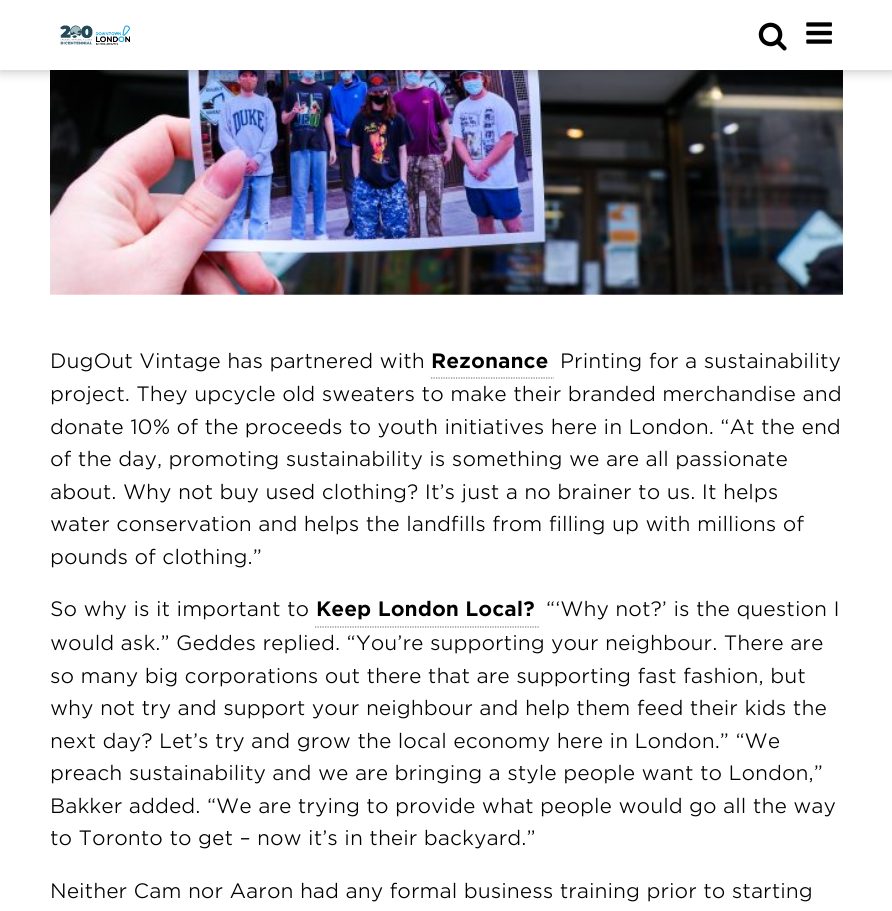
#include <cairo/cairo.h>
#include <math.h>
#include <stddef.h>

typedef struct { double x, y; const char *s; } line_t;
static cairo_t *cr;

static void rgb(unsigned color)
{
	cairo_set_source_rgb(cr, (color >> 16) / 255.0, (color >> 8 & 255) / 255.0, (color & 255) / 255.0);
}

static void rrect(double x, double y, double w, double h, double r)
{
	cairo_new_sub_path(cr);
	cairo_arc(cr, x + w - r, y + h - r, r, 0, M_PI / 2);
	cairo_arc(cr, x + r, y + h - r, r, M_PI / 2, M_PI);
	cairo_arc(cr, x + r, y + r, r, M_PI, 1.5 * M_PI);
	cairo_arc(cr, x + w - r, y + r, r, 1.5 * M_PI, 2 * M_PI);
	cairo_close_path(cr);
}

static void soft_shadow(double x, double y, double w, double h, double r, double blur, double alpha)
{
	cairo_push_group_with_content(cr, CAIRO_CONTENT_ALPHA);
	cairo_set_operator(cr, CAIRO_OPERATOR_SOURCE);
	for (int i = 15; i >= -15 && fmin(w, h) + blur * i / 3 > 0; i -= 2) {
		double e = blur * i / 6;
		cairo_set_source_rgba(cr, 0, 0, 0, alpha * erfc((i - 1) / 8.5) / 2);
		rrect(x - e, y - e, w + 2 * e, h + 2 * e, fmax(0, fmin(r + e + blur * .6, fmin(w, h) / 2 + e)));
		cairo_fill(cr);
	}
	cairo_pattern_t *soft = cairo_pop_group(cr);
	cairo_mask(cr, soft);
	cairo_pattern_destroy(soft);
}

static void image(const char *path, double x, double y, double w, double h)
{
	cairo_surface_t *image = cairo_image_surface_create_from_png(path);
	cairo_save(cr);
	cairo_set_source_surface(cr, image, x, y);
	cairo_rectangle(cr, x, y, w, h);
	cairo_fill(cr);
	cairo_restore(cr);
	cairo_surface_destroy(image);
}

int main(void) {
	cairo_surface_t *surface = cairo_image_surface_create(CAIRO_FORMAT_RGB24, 892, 911);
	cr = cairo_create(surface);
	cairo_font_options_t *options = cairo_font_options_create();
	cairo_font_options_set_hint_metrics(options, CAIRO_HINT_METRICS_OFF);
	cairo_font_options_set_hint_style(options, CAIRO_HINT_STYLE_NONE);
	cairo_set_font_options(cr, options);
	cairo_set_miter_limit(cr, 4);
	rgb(0xffffff);
	cairo_paint(cr);
	image("img/4.png", 50, 70, 793, 225);
	rgb(0x000000);
	soft_shadow(0, 1, 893, 70, 0, 6, 0.25);
	rgb(0xffffff);
	cairo_rectangle(cr, 0, 0, 892, 70);
	cairo_fill(cr);
	image("img/1.png", 60, 25, 70, 20);
	image("img/2.png", 758, 22, 29, 29);
	image("img/3.png", 806, 22, 26, 22);
	cairo_new_path(cr);
	cairo_move_to(cr, 431, 378);
	cairo_line_to(cr, 554, 378);
	rgb(0x808080);
	cairo_set_line_width(cr, 1.2);
	cairo_set_dash(cr, (double[]){1.25, 1.25}, 2, 0);
	cairo_stroke(cr);
	cairo_new_path(cr);
	cairo_move_to(cr, 315, 627);
	cairo_line_to(cr, 539, 627);
	cairo_stroke(cr);
	cairo_select_font_face(cr, "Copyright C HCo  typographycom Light", CAIRO_FONT_SLANT_NORMAL, CAIRO_FONT_WEIGHT_NORMAL);
	cairo_set_font_size(cr, 20);
	rgb(0x000000);
	cairo_move_to(cr, 50, 368);
	cairo_show_text(cr, "DugOut Vintage has partnered with");
	cairo_select_font_face(cr, "Copyright C HCo  typographycom", CAIRO_FONT_SLANT_NORMAL, CAIRO_FONT_WEIGHT_NORMAL);
	cairo_move_to(cr, 431, 368);
	cairo_show_text(cr, "Rezonance");
	cairo_select_font_face(cr, "Copyright C HCo  typographycom Light", CAIRO_FONT_SLANT_NORMAL, CAIRO_FONT_WEIGHT_NORMAL);
	{
		static const line_t items[] = {
			{560, 368, "Printing for a sustainability"},
			{50, 401, "project. They upcycle old sweaters to make their branded merchandise and"},
			{50, 434, "donate 10% of the proceeds to youth initiatives here in London. “At the end"},
			{50, 466, "of the day, promoting sustainability is something we are all passionate"},
			{50, 499, "about. Why not buy used clothing? It’s just a no brainer to us. It helps"},
			{50, 531, "water conservation and helps the landfills from filling up with millions of"},
			{50, 564, "pounds of clothing.”"},
			{50, 616, "So why is it important to"},
		};
		for (size_t i = 0; i < sizeof items / sizeof *items; i++) {
			cairo_move_to(cr, items[i].x, items[i].y);
			cairo_show_text(cr, items[i].s);
		}
	}
	cairo_select_font_face(cr, "Copyright C HCo  typographycom", CAIRO_FONT_SLANT_NORMAL, CAIRO_FONT_WEIGHT_NORMAL);
	cairo_move_to(cr, 316, 616);
	cairo_show_text(cr, "Keep London Local?");
	cairo_select_font_face(cr, "Copyright C HCo  typographycom Light", CAIRO_FONT_SLANT_NORMAL, CAIRO_FONT_WEIGHT_NORMAL);
	{
		static const line_t items[] = {
			{546, 616, "“‘Why not?’ is the question I"},
			{50, 650, "would ask.” Geddes replied. “You’re supporting your neighbour. There are"},
			{50, 683, "so many big corporations out there that are supporting fast fashion, but"},
			{50, 715, "why not try and support your neighbour and help them feed their kids the"},
			{50, 748, "next day? Let’s try and grow the local economy here in London.” “We"},
			{50, 780, "preach sustainability and we are bringing a style people want to London,”"},
			{50, 813, "Bakker added. “We are trying to provide what people would go all the way"},
			{50, 845, "to Toronto to get – now it’s in their backyard.”"},
			{50, 898, "Neither Cam nor Aaron had any formal business training prior to starting"},
		};
		for (size_t i = 0; i < sizeof items / sizeof *items; i++) {
			cairo_move_to(cr, items[i].x, items[i].y);
			cairo_show_text(cr, items[i].s);
		}
	}
	cairo_surface_write_to_png(surface, "page.png");
	cairo_font_options_destroy(options);
	cairo_destroy(cr);
	cairo_surface_destroy(surface);
	return 0;
}
